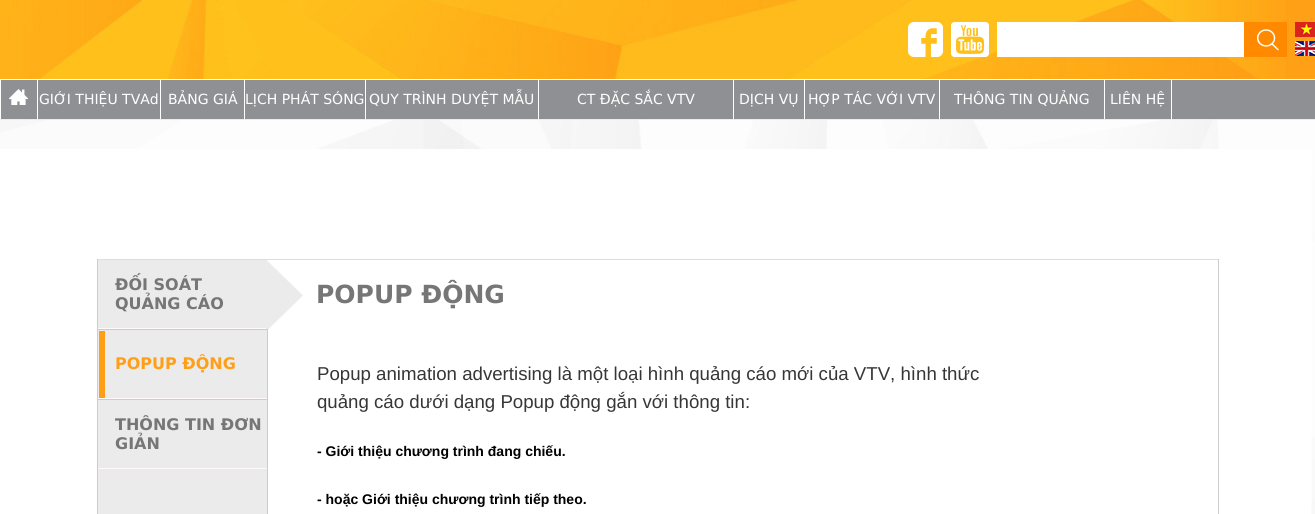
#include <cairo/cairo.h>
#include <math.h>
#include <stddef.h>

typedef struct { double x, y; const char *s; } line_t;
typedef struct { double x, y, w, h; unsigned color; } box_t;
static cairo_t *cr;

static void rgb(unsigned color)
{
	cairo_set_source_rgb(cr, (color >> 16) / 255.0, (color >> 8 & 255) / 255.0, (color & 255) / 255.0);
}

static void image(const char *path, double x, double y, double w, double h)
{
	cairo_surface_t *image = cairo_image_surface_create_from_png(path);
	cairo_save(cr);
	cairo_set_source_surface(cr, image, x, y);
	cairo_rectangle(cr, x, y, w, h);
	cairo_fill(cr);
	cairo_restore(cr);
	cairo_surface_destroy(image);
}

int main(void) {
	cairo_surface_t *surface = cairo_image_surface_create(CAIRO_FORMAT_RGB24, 1315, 514);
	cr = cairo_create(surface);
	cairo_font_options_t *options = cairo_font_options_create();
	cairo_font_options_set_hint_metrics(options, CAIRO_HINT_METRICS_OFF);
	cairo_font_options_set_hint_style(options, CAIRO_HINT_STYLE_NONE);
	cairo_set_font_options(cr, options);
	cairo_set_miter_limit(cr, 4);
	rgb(0xffffff);
	cairo_paint(cr);
	image("img/1.png", 0, 119, 1315, 395);
	image("img/2.png", 0, 0, 1315, 119);
	image("img/3.png", 908, 22, 35, 35);
	image("img/4.png", 951, 22, 38, 35);
	rgb(0xffffff);
	cairo_rectangle(cr, 997, 22, 247, 35);
	cairo_fill(cr);
	image("img/5.png", 1244, 22, 11, 35);
	image("img/6.png", 1255, 22, 32, 35);
	image("img/7.png", 1295, 22, 20, 15);
	image("img/8.png", 1295, 41, 20, 15);
	cairo_rectangle(cr, 18, 79, 10, 1);
	cairo_fill(cr);
	cairo_rectangle(cr, 0, 79, 1, 40);
	cairo_fill(cr);
	image("img/9.png", 9, 89, 19, 16);
	{
		static const box_t items[] = {
			{390, 79, 72, 1, 0xffffff},
			{365, 79, 1, 40, 0xffffff},
			{37, 79, 5, 1, 0xffffff},
			{37, 79, 1, 40, 0xffffff},
			{160, 79, 84, 1, 0xffffff},
			{160, 79, 1, 40, 0xffffff},
			{267, 79, 1, 1, 0xffffff},
			{244, 79, 1, 40, 0xffffff},
			{576, 79, 42, 1, 0xffffff},
			{538, 79, 1, 40, 0xffffff},
			{733, 79, 1, 40, 0xffffff},
			{922, 79, 65, 1, 0xffffff},
			{804, 79, 1, 40, 0xffffff},
			{939, 79, 1, 40, 0xffffff},
			{1152, 79, 1, 1, 0xffffff},
			{1171, 79, 1, 40, 0xffffff},
			{1104, 79, 1, 40, 0xffffff},
			{97, 259, 1122, 1, 0xdddddd},
			{1218, 259, 1, 255, 0xcccccc},
			{97, 259, 1, 255, 0xcccccc},
			{98, 260, 169, 254, 0xebebeb},
			{267, 329, 1, 185, 0xcccccc},
			{98, 328, 169, 1, 0xfff9fb},
			{98, 329, 169, 1, 0xcccccc},
			{98, 398, 169, 1, 0xfff9fb},
			{99, 331, 6, 67, 0xff9f18},
			{98, 399, 169, 1, 0xcccccc},
			{98, 468, 169, 1, 0xfff9fb},
			{266, 260, 1, 69, 0xffffff},
		};
		for (size_t i = 0; i < sizeof items / sizeof *items; i++) {
			rgb(items[i].color);
			cairo_rectangle(cr, items[i].x, items[i].y, items[i].w, items[i].h);
			cairo_fill(cr);
		}
	}
	image("img/10.png", 266, 260, 37, 69);
	cairo_select_font_face(cr, "DejaVu Sans", CAIRO_FONT_SLANT_NORMAL, CAIRO_FONT_WEIGHT_NORMAL);
	cairo_set_font_size(cr, 14);
	{
		static const line_t items[] = {
			{39, 104, "GIỚI THIỆU TVAd"},
			{168, 104, "BẢNG GIÁ"},
			{245, 104, "LỊCH PHÁT SÓNG QUY TRÌNH DUYỆT MẪU"},
			{577, 104, "CT ĐẶC SẮC VTV"},
			{739, 104, "DỊCH VỤ"},
			{808, 104, "HỢP TÁC VỚI VTV"},
			{954, 104, "THÔNG TIN QUẢNG"},
			{1110, 104, "LIÊN HỆ"},
		};
		for (size_t i = 0; i < sizeof items / sizeof *items; i++) {
			cairo_move_to(cr, items[i].x, items[i].y);
			cairo_show_text(cr, items[i].s);
		}
	}
	cairo_select_font_face(cr, "DejaVu Sans", CAIRO_FONT_SLANT_NORMAL, CAIRO_FONT_WEIGHT_BOLD);
	cairo_set_font_size(cr, 16);
	rgb(0x767676);
	cairo_move_to(cr, 115, 290);
	cairo_show_text(cr, "ĐỐI SOÁT");
	cairo_move_to(cr, 115, 309);
	cairo_show_text(cr, "QUẢNG CÁO");
	rgb(0xff9f18);
	cairo_move_to(cr, 115, 369);
	cairo_show_text(cr, "POPUP ĐỘNG");
	rgb(0x767676);
	cairo_move_to(cr, 115, 430);
	cairo_show_text(cr, "THÔNG TIN ĐƠN");
	cairo_move_to(cr, 115, 449);
	cairo_show_text(cr, "GIẢN");
	cairo_set_font_size(cr, 25);
	cairo_move_to(cr, 316, 303);
	cairo_show_text(cr, "POPUP ĐỘNG");
	cairo_select_font_face(cr, "Liberation Sans", CAIRO_FONT_SLANT_NORMAL, CAIRO_FONT_WEIGHT_NORMAL);
	cairo_set_font_size(cr, 18.65);
	rgb(0x363636);
	cairo_move_to(cr, 317, 380);
	cairo_show_text(cr, "Popup animation advertising là một loại hình quảng cáo mới của VTV, hình thức");
	cairo_move_to(cr, 317, 408);
	cairo_show_text(cr, "quảng cáo dưới dạng Popup động gắn với thông tin:");
	cairo_select_font_face(cr, "Liberation Sans", CAIRO_FONT_SLANT_NORMAL, CAIRO_FONT_WEIGHT_BOLD);
	cairo_set_font_size(cr, 14);
	rgb(0x000000);
	cairo_move_to(cr, 317, 456);
	cairo_show_text(cr, "- Giới thiệu chương trình đang chiếu.");
	cairo_move_to(cr, 317, 504);
	cairo_show_text(cr, "- hoặc Giới thiệu chương trình tiếp theo.");
	cairo_surface_write_to_png(surface, "page.png");
	cairo_font_options_destroy(options);
	cairo_destroy(cr);
	cairo_surface_destroy(surface);
	return 0;
}
